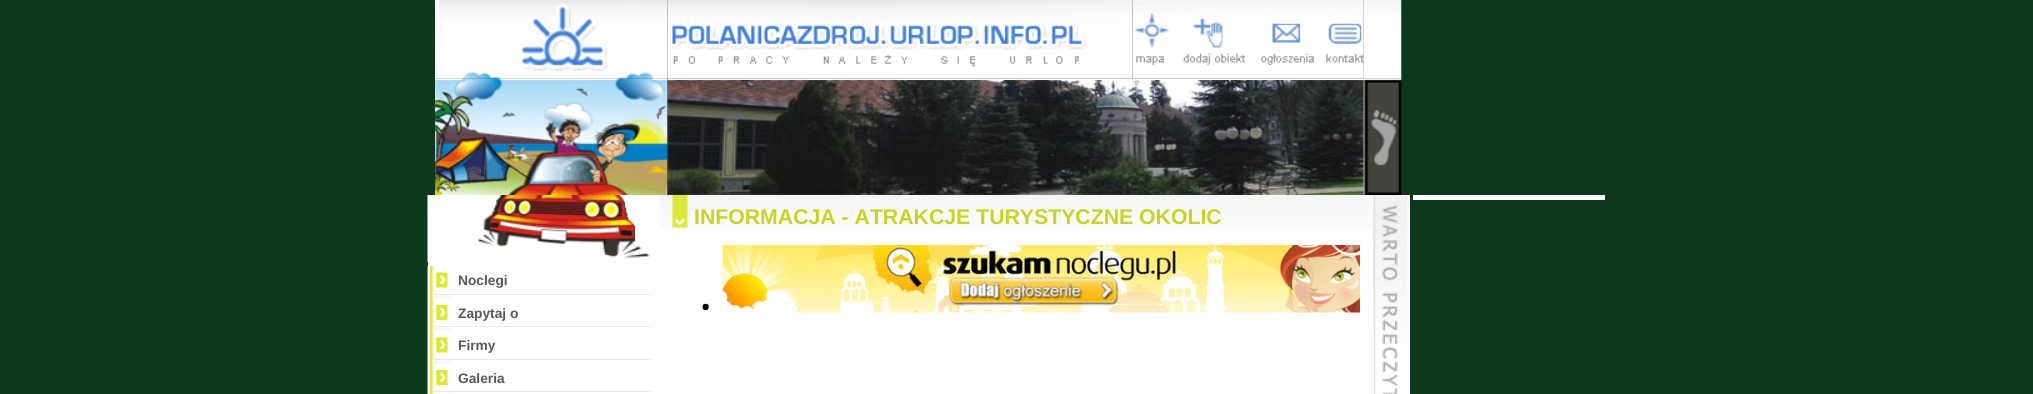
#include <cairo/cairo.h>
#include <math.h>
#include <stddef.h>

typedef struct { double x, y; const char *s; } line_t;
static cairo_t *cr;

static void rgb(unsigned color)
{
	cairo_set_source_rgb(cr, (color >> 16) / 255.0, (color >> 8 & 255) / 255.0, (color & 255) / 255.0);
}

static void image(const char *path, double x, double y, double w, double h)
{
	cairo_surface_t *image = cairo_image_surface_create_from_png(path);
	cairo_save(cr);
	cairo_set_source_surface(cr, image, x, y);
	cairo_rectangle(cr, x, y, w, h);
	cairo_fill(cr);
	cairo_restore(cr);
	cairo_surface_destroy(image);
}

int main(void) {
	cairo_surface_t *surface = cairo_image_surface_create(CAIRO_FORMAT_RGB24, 2033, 394);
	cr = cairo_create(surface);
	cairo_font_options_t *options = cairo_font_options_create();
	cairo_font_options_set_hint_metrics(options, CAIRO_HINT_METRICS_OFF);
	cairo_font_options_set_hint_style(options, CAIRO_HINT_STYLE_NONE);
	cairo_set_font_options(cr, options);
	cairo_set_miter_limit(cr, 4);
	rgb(0x0c3919);
	cairo_paint(cr);
	rgb(0xffffff);
	cairo_rectangle(cr, 1413, 195, 192, 5);
	cairo_fill(cr);
	image("img/1.png", 435, 0, 233, 79);
	image("img/2.png", 667, 0, 466, 79);
	image("img/3.png", 1132, 0, 232, 79);
	image("img/4.png", 1363, 0, 39, 79);
	image("img/5.png", 435, 78, 233, 117);
	cairo_rectangle(cr, 668, 79, 696, 116);
	cairo_fill(cr);
	image("img/6.png", 667, 80, 697, 115);
	image("img/7.png", 1363, 78, 39, 117);
	cairo_rectangle(cr, 660, 195, 713, 199);
	cairo_fill(cr);
	image("img/8.png", 660, 195, 713, 34);
	image("img/9.png", 672, 195, 16, 33);
	image("img/10.png", 702, 245, 658, 68);
	image("img/11.png", 1372, 195, 38, 199);
	cairo_rectangle(cr, 428, 262, 232, 132);
	cairo_fill(cr);
	image("img/12.png", 427, 195, 233, 68);
	image("img/13.png", 427, 266, 25, 128);
	cairo_rectangle(cr, 434, 266, 18, 28);
	cairo_fill(cr);
	image("img/14.png", 436, 272, 12, 16);
	rgb(0xe8e8e8);
	cairo_rectangle(cr, 434, 294, 219, 1);
	cairo_fill(cr);
	rgb(0xffffff);
	cairo_rectangle(cr, 434, 299, 18, 29);
	cairo_fill(cr);
	image("img/15.png", 436, 305, 12, 15);
	rgb(0xe8e8e8);
	cairo_rectangle(cr, 434, 326, 219, 1);
	cairo_fill(cr);
	rgb(0xffffff);
	cairo_rectangle(cr, 434, 331, 18, 28);
	cairo_fill(cr);
	image("img/14.png", 436, 337, 12, 16);
	rgb(0xe8e8e8);
	cairo_rectangle(cr, 434, 359, 219, 1);
	cairo_fill(cr);
	rgb(0xffffff);
	cairo_rectangle(cr, 434, 364, 18, 29);
	cairo_fill(cr);
	image("img/15.png", 436, 370, 12, 15);
	rgb(0xe8e8e8);
	cairo_rectangle(cr, 434, 391, 219, 1);
	cairo_fill(cr);
	cairo_select_font_face(cr, "Liberation Sans", CAIRO_FONT_SLANT_NORMAL, CAIRO_FONT_WEIGHT_BOLD);
	cairo_set_font_size(cr, 21.25);
	rgb(0xc7d520);
	cairo_move_to(cr, 694, 224);
	cairo_show_text(cr, "INFORMACJA - ATRAKCJE TURYSTYCZNE OKOLIC");
	cairo_set_font_size(cr, 13.75);
	rgb(0x595959);
	{
		static const line_t items[] = {
			{458, 285, "Noclegi"},
			{458, 318, "Zapytaj o"},
			{458, 350, "Firmy"},
			{458, 383, "Galeria"},
		};
		for (size_t i = 0; i < sizeof items / sizeof *items; i++) {
			cairo_move_to(cr, items[i].x, items[i].y);
			cairo_show_text(cr, items[i].s);
		}
	}
	cairo_surface_write_to_png(surface, "page.png");
	cairo_font_options_destroy(options);
	cairo_destroy(cr);
	cairo_surface_destroy(surface);
	return 0;
}
